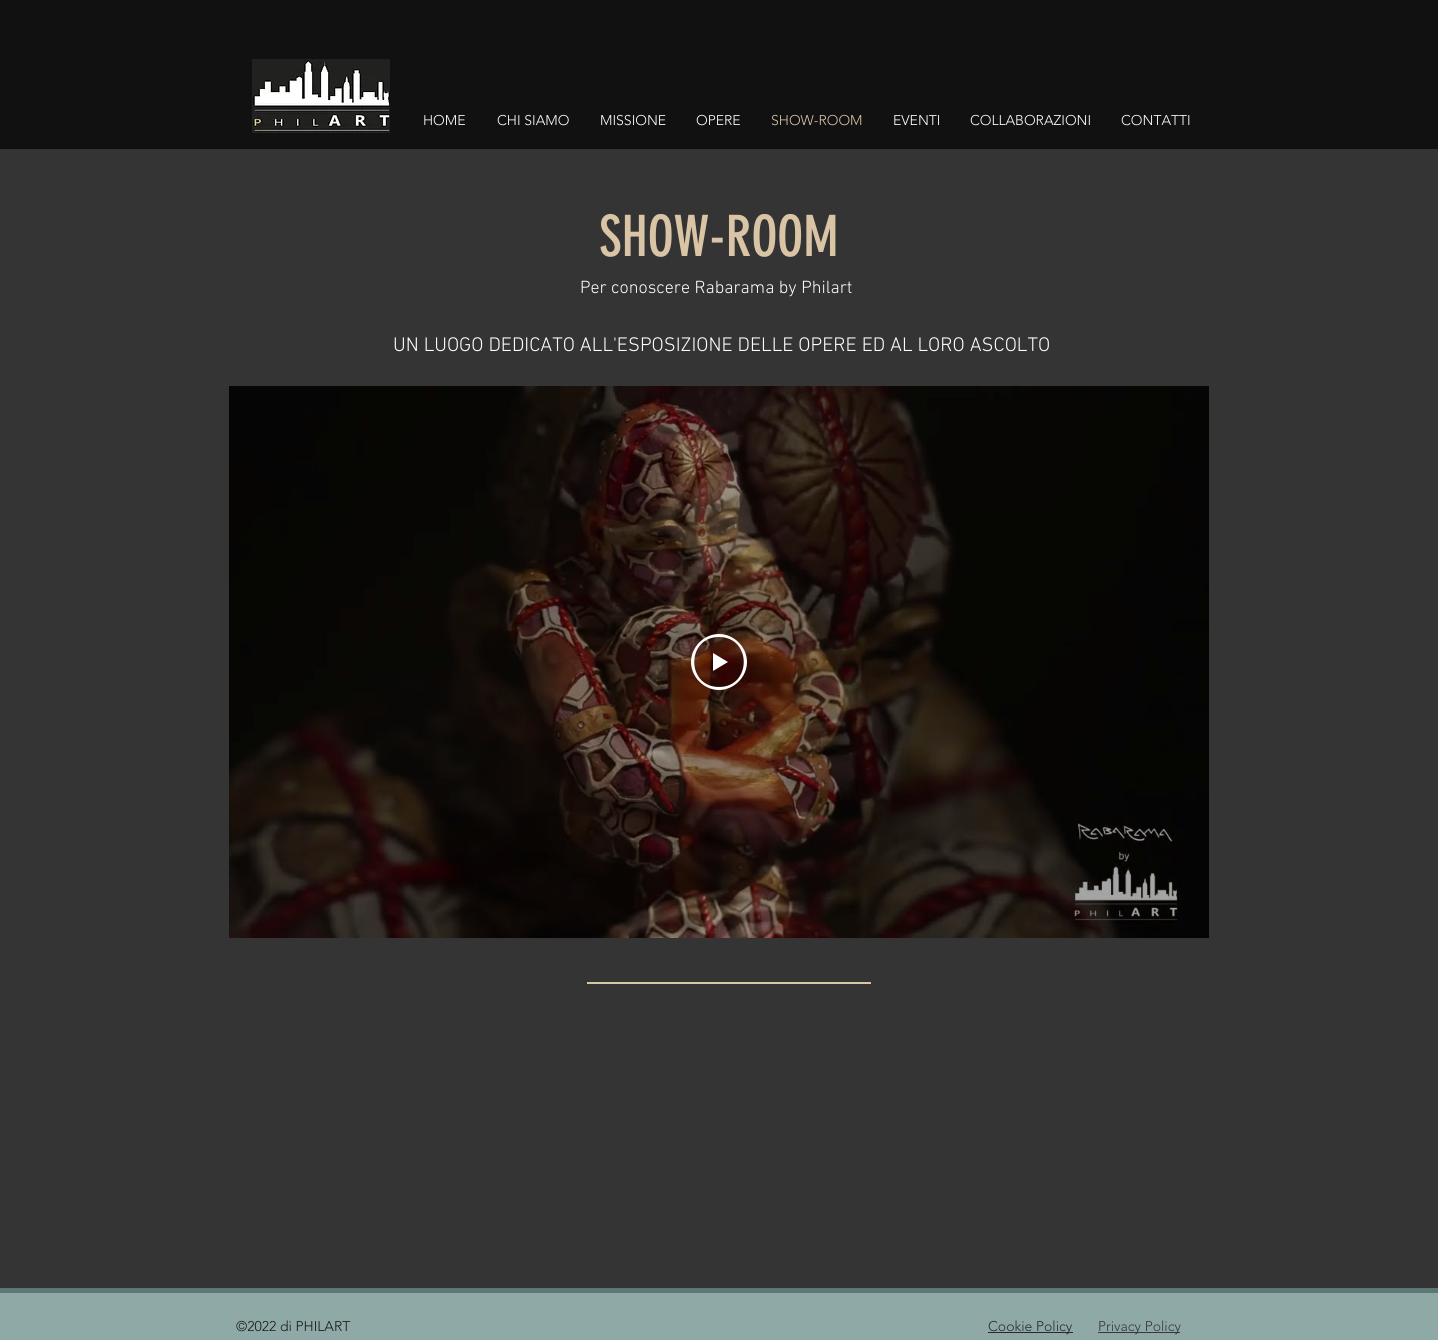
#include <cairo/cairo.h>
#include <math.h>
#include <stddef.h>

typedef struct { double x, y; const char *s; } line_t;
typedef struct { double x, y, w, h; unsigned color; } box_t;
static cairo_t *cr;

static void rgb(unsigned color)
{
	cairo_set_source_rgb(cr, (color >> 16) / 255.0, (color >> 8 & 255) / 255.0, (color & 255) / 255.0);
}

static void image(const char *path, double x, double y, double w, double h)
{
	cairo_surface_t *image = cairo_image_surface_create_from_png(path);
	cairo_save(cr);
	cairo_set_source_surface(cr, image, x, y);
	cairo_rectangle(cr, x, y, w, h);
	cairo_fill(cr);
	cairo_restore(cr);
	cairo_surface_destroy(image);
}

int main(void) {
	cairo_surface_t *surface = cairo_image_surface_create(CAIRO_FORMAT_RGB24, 1438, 1340);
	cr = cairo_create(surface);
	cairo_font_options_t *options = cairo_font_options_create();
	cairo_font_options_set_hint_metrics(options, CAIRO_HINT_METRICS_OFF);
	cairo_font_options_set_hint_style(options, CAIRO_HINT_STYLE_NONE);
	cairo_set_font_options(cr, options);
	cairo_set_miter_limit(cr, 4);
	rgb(0x111111);
	cairo_paint(cr);
	image("img/1.png", 252, 59, 138, 74);
	rgb(0x343434);
	cairo_rectangle(cr, 0, 149, 1438, 1139);
	cairo_fill(cr);
	image("img/2.png", 229, 386, 980, 552);
	image("img/3.png", 255, 386, 924, 552);
	rgb(0xffffff);
	cairo_set_fill_rule(cr, CAIRO_FILL_RULE_EVEN_ODD);
	cairo_new_path(cr);
	cairo_move_to(cr, 719, 687);
	cairo_curve_to(cr, 752, 687, 752, 637, 719, 637);
	cairo_curve_to(cr, 686, 637, 686, 687, 719, 687);
	cairo_close_path(cr);
	cairo_move_to(cr, 719, 690);
	cairo_curve_to(cr, 704, 690, 691, 677, 691, 662);
	cairo_curve_to(cr, 691, 647, 704, 634, 719, 634);
	cairo_curve_to(cr, 734, 634, 747, 647, 747, 662);
	cairo_curve_to(cr, 747, 677, 734, 690, 719, 690);
	cairo_close_path(cr);
	cairo_fill(cr);
	cairo_new_path(cr);
	cairo_move_to(cr, 728, 662);
	cairo_line_to(cr, 713, 671);
	cairo_line_to(cr, 713, 653);
	cairo_close_path(cr);
	cairo_fill(cr);
	{
		static const box_t items[] = {
			{587, 982, 284, 2, 0xd9c4a6},
			{0, 1293, 1438, 47, 0x8fa9a7},
			{0, 1288, 1438, 5, 0x5c7876},
			{988, 1332, 85, 1, 0x292929},
			{1098, 1332, 82, 1, 0x383838},
		};
		for (size_t i = 0; i < sizeof items / sizeof *items; i++) {
			rgb(items[i].color);
			cairo_rectangle(cr, items[i].x, items[i].y, items[i].w, items[i].h);
			cairo_fill(cr);
		}
	}
	cairo_select_font_face(cr, "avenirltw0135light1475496 Light", CAIRO_FONT_SLANT_NORMAL, CAIRO_FONT_WEIGHT_NORMAL);
	cairo_set_font_size(cr, 14);
	rgb(0xffffff);
	{
		static const line_t items[] = {
			{423, 125, "HOME"},
			{497, 125, "CHI SIAMO"},
			{600, 125, "MISSIONE"},
			{696, 125, "OPERE"},
		};
		for (size_t i = 0; i < sizeof items / sizeof *items; i++) {
			cairo_move_to(cr, items[i].x, items[i].y);
			cairo_show_text(cr, items[i].s);
		}
	}
	rgb(0xd9c4a6);
	cairo_move_to(cr, 771, 125);
	cairo_show_text(cr, "SHOW-ROOM");
	rgb(0xffffff);
	{
		static const line_t items[] = {
			{893, 125, "EVENTI"},
			{970, 125, "COLLABORAZIONI"},
			{1121, 125, "CONTATTI"},
		};
		for (size_t i = 0; i < sizeof items / sizeof *items; i++) {
			cairo_move_to(cr, items[i].x, items[i].y);
			cairo_show_text(cr, items[i].s);
		}
	}
	cairo_select_font_face(cr, "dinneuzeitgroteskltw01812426", CAIRO_FONT_SLANT_NORMAL, CAIRO_FONT_WEIGHT_NORMAL);
	cairo_set_font_size(cr, 56);
	rgb(0xd9c4a6);
	cairo_move_to(cr, 599, 256);
	cairo_show_text(cr, "SHOW-ROOM");
	cairo_select_font_face(cr, "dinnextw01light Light", CAIRO_FONT_SLANT_NORMAL, CAIRO_FONT_WEIGHT_NORMAL);
	cairo_set_font_size(cr, 18);
	rgb(0xffffff);
	cairo_move_to(cr, 580, 293);
	cairo_show_text(cr, "Per conoscere Rabarama by Philart");
	cairo_set_font_size(cr, 20);
	cairo_move_to(cr, 393, 351);
	cairo_show_text(cr, "UN LUOGO DEDICATO ALL'ESPOSIZIONE DELLE OPERE ED AL LORO ASCOLTO");
	cairo_select_font_face(cr, "avenirltw0135light1475496 Light", CAIRO_FONT_SLANT_NORMAL, CAIRO_FONT_WEIGHT_NORMAL);
	cairo_set_font_size(cr, 14);
	rgb(0x1a1a1a);
	cairo_move_to(cr, 236, 1331);
	cairo_show_text(cr, "©2022 di PHILART");
	rgb(0x292929);
	cairo_move_to(cr, 988, 1331);
	cairo_show_text(cr, "Cookie Policy");
	rgb(0x383838);
	cairo_move_to(cr, 1098, 1331);
	cairo_show_text(cr, "Privacy Policy");
	cairo_surface_write_to_png(surface, "page.png");
	cairo_font_options_destroy(options);
	cairo_destroy(cr);
	cairo_surface_destroy(surface);
	return 0;
}
